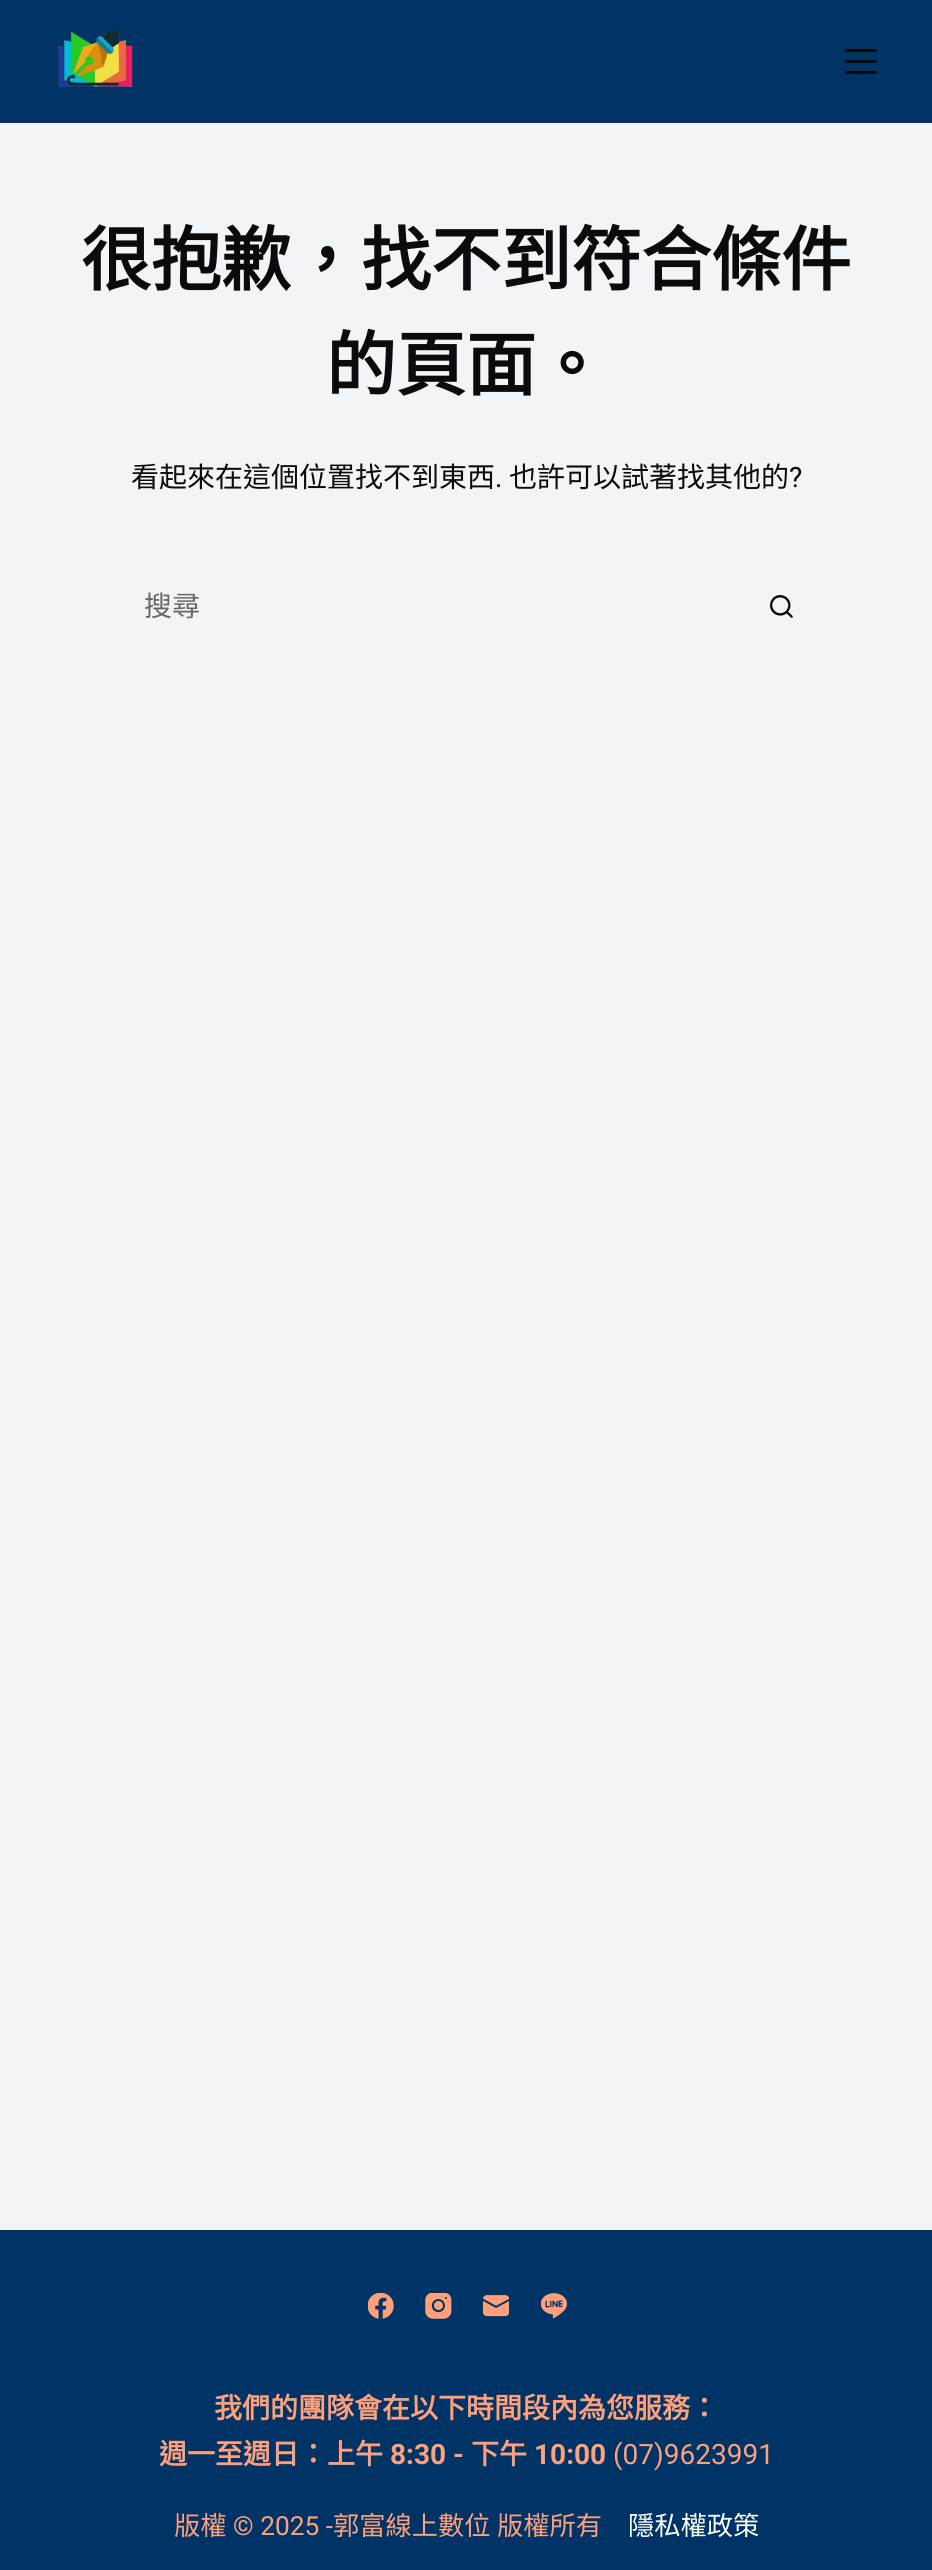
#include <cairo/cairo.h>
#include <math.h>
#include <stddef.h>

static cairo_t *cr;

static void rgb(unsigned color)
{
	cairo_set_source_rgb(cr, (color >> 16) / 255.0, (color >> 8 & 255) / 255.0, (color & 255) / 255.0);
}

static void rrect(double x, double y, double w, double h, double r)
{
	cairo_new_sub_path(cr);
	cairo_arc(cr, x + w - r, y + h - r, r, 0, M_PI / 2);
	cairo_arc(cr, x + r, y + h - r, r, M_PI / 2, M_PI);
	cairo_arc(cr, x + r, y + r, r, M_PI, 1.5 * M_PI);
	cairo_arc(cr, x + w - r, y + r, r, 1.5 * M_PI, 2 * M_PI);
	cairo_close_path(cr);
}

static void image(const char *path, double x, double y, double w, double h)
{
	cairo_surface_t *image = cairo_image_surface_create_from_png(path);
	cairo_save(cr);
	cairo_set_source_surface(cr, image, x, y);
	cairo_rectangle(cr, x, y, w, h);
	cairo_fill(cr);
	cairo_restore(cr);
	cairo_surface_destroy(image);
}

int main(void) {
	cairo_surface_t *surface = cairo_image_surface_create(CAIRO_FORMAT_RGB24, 932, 2570);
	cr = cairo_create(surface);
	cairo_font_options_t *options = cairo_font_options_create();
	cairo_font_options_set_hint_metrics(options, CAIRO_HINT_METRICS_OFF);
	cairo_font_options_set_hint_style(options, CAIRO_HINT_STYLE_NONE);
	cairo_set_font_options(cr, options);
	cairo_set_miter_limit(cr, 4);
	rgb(0xf2f5f7);
	cairo_paint(cr);
	rgb(0x003366);
	cairo_rectangle(cr, 0, 0, 932, 123);
	cairo_fill(cr);
	image("img/1.png", 58, 31, 75, 56);
	rgb(0x0b0b0b);
	rrect(845, 49, 32, 3, 1.5);
	cairo_fill(cr);
	rrect(845, 60, 32, 3, 1.5);
	cairo_fill(cr);
	rrect(845, 71, 32, 3, 1.5);
	cairo_fill(cr);
	image("img/2.png", 770, 595, 23, 23);
	rgb(0x003366);
	cairo_rectangle(cr, 0, 2230, 932, 340);
	cairo_fill(cr);
	image("img/3.png", 368, 2293, 26, 26);
	image("img/4.png", 425, 2293, 27, 26);
	image("img/5.png", 483, 2295, 26, 22);
	image("img/6.png", 541, 2293, 26, 26);
	cairo_select_font_face(cr, "Noto Sans CJK TC", CAIRO_FONT_SLANT_NORMAL, CAIRO_FONT_WEIGHT_BOLD);
	cairo_set_font_size(cr, 70);
	rgb(0x0b0b0b);
	cairo_move_to(cr, 81, 285);
	cairo_show_text(cr, "很抱歉，找不到符合條件");
	cairo_move_to(cr, 326, 390);
	cairo_show_text(cr, "的頁面。");
	cairo_select_font_face(cr, "Noto Sans CJK TC", CAIRO_FONT_SLANT_NORMAL, CAIRO_FONT_WEIGHT_NORMAL);
	cairo_set_font_size(cr, 28);
	cairo_move_to(cr, 131, 487);
	cairo_show_text(cr, "看起來在這個位置找不到東西");
	cairo_select_font_face(cr, "Roboto", CAIRO_FONT_SLANT_NORMAL, CAIRO_FONT_WEIGHT_NORMAL);
	cairo_move_to(cr, 495, 487);
	cairo_show_text(cr, ".");
	cairo_select_font_face(cr, "Noto Sans CJK TC", CAIRO_FONT_SLANT_NORMAL, CAIRO_FONT_WEIGHT_NORMAL);
	cairo_move_to(cr, 509, 487);
	cairo_show_text(cr, "也許可以試著找其他的");
	cairo_select_font_face(cr, "Roboto", CAIRO_FONT_SLANT_NORMAL, CAIRO_FONT_WEIGHT_NORMAL);
	cairo_move_to(cr, 789, 487);
	cairo_show_text(cr, "?");
	cairo_select_font_face(cr, "Noto Sans CJK TC", CAIRO_FONT_SLANT_NORMAL, CAIRO_FONT_WEIGHT_NORMAL);
	rgb(0x676969);
	cairo_move_to(cr, 144, 616);
	cairo_show_text(cr, "搜尋");
	cairo_select_font_face(cr, "Noto Sans CJK TC", CAIRO_FONT_SLANT_NORMAL, CAIRO_FONT_WEIGHT_BOLD);
	rgb(0xffa07a);
	cairo_move_to(cr, 214, 2418);
	cairo_show_text(cr, "我們的團隊會在以下時間段內為您服務：");
	cairo_move_to(cr, 159, 2464);
	cairo_show_text(cr, "週一至週日：上午");
	cairo_select_font_face(cr, "Roboto", CAIRO_FONT_SLANT_NORMAL, CAIRO_FONT_WEIGHT_BOLD);
	cairo_move_to(cr, 390, 2464);
	cairo_show_text(cr, "8:30 -");
	cairo_select_font_face(cr, "Noto Sans CJK TC", CAIRO_FONT_SLANT_NORMAL, CAIRO_FONT_WEIGHT_BOLD);
	cairo_move_to(cr, 471, 2464);
	cairo_show_text(cr, "下午");
	cairo_select_font_face(cr, "Roboto", CAIRO_FONT_SLANT_NORMAL, CAIRO_FONT_WEIGHT_BOLD);
	cairo_move_to(cr, 534, 2464);
	cairo_show_text(cr, "10:00");
	cairo_select_font_face(cr, "Roboto", CAIRO_FONT_SLANT_NORMAL, CAIRO_FONT_WEIGHT_NORMAL);
	cairo_move_to(cr, 613, 2464);
	cairo_show_text(cr, "(07)9623991");
	cairo_select_font_face(cr, "Noto Sans CJK TC", CAIRO_FONT_SLANT_NORMAL, CAIRO_FONT_WEIGHT_NORMAL);
	cairo_set_font_size(cr, 26.25);
	cairo_move_to(cr, 174, 2535);
	cairo_show_text(cr, "版權");
	cairo_select_font_face(cr, "Roboto", CAIRO_FONT_SLANT_NORMAL, CAIRO_FONT_WEIGHT_NORMAL);
	cairo_move_to(cr, 233, 2535);
	cairo_show_text(cr, "© 2025 -");
	cairo_select_font_face(cr, "Noto Sans CJK TC", CAIRO_FONT_SLANT_NORMAL, CAIRO_FONT_WEIGHT_NORMAL);
	cairo_move_to(cr, 333, 2535);
	cairo_show_text(cr, "郭富線上數位");
	cairo_move_to(cr, 497, 2535);
	cairo_show_text(cr, "版權所有");
	rgb(0xffffff);
	cairo_move_to(cr, 628, 2535);
	cairo_show_text(cr, "隱私權政策");
	cairo_surface_write_to_png(surface, "page.png");
	cairo_font_options_destroy(options);
	cairo_destroy(cr);
	cairo_surface_destroy(surface);
	return 0;
}
